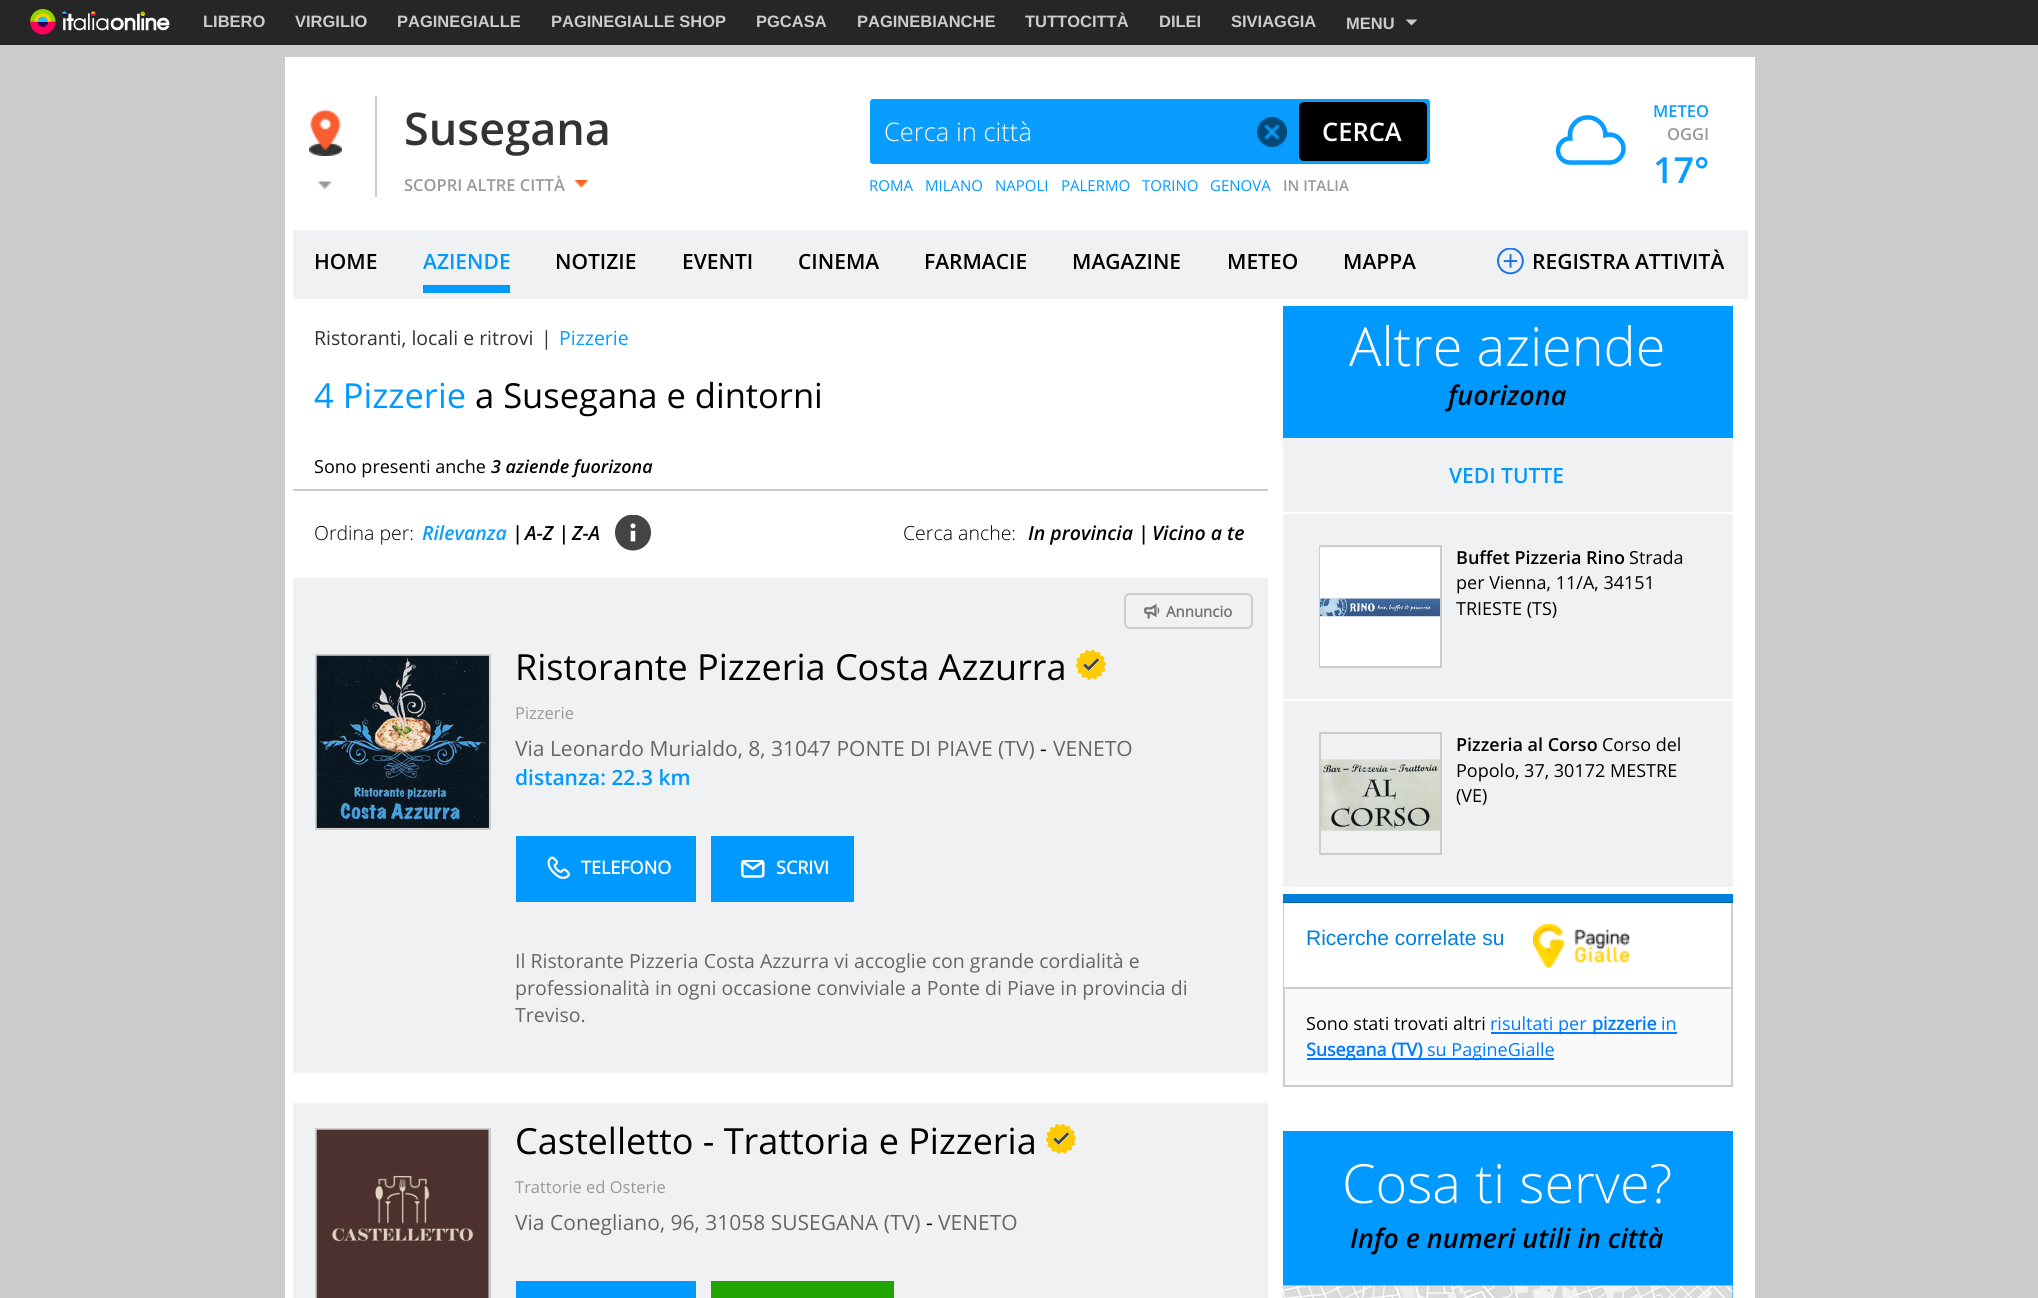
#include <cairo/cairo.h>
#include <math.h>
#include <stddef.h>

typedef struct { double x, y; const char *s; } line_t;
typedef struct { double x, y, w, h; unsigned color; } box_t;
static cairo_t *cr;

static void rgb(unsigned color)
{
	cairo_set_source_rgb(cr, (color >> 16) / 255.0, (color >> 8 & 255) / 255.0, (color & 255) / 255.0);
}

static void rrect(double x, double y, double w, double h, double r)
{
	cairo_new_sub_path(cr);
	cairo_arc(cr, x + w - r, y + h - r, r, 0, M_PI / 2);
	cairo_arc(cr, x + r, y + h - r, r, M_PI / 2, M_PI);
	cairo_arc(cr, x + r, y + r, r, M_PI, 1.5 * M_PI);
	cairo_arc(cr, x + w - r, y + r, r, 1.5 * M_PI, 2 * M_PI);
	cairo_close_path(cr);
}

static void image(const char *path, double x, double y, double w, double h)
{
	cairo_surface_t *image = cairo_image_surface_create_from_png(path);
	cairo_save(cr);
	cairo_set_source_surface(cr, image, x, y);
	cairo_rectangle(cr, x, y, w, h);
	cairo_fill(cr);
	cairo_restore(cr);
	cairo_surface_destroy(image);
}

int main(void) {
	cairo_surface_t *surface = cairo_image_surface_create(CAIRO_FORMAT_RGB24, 2038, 1298);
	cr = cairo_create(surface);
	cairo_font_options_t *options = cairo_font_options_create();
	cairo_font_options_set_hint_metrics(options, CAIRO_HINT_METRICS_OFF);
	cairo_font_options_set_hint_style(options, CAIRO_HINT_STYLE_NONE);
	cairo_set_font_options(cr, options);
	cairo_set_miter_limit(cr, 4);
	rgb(0xcccccc);
	cairo_paint(cr);
	rgb(0x262626);
	cairo_rectangle(cr, 0, 0, 2038, 45);
	cairo_fill(cr);
	image("img/1.png", 30, 9, 140, 26);
	rgb(0xcccccc);
	cairo_new_path(cr);
	cairo_move_to(cr, 1405.5, 19.5);
	cairo_line_to(cr, 1417.5, 19.5);
	cairo_line_to(cr, 1411.5, 25.5);
	cairo_close_path(cr);
	cairo_fill(cr);
	rgb(0xffffff);
	cairo_rectangle(cr, 285, 57, 1470, 1241);
	cairo_fill(cr);
	rgb(0xcccccc);
	cairo_rectangle(cr, 375, 96, 2, 101);
	cairo_fill(cr);
	image("img/2.png", 309, 109, 33, 47);
	image("img/3.png", 318, 181, 14, 8);
	image("img/4.png", 574, 180, 14, 8);
	rgb(0x099dff);
	rrect(870, 99, 560, 65, 3);
	cairo_fill(cr);
	image("img/5.png", 1257, 117, 30, 30);
	rgb(0x000000);
	rrect(1299, 102, 128, 59, 5);
	cairo_fill(cr);
	image("img/6.png", 1555, 115, 71, 50);
	rgb(0xf0f1f3);
	cairo_rectangle(cr, 293, 230, 1455, 69);
	cairo_fill(cr);
	rgb(0x0099ff);
	cairo_rectangle(cr, 423, 285, 87, 8);
	cairo_fill(cr);
	image("img/7.png", 1497, 248, 27, 27);
	rgb(0xcccccc);
	cairo_rectangle(cr, 293, 489, 975, 2);
	cairo_fill(cr);
	image("img/8.png", 615, 515, 36, 36);
	rgb(0xf0f1f3);
	cairo_rectangle(cr, 293, 578, 975, 495);
	cairo_fill(cr);
	rrect(1125, 594, 127, 34, 5);
	rgb(0xcccccc);
	cairo_stroke(cr);
	image("img/9.png", 1144, 603, 16, 16);
	cairo_rectangle(cr, 316, 655, 174, 174);
	cairo_stroke(cr);
	image("img/10.png", 316, 655, 173, 173);
	image("img/11.png", 1076, 650, 30, 30);
	rgb(0x0099ff);
	cairo_rectangle(cr, 516, 836, 180, 66);
	cairo_fill(cr);
	image("img/12.png", 547, 856, 23, 23);
	cairo_rectangle(cr, 711, 836, 143, 66);
	cairo_fill(cr);
	image("img/13.png", 741, 860, 24, 18);
	rgb(0xf0f1f3);
	cairo_rectangle(cr, 293, 1103, 975, 195);
	cairo_fill(cr);
	cairo_rectangle(cr, 316, 1129, 174, 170);
	rgb(0xcccccc);
	cairo_stroke(cr);
	image("img/14.png", 316, 1129, 173, 169);
	image("img/11.png", 1046, 1124, 30, 30);
	{
		static const box_t items[] = {
			{516, 1281, 180, 17, 0x0099ff},
			{711, 1281, 183, 17, 0x22a502},
			{1283, 306, 450, 132, 0x0099ff},
			{1283, 438, 450, 74, 0xf0f1f3},
			{1283, 514, 450, 185, 0xf0f1f3},
		};
		for (size_t i = 0; i < sizeof items / sizeof *items; i++) {
			rgb(items[i].color);
			cairo_rectangle(cr, items[i].x, items[i].y, items[i].w, items[i].h);
			cairo_fill(cr);
		}
	}
	cairo_rectangle(cr, 1320, 546, 121, 121);
	rgb(0xcccccc);
	cairo_stroke(cr);
	image("img/15.png", 1320, 547, 120, 119);
	rgb(0xf0f1f3);
	cairo_rectangle(cr, 1283, 701, 450, 186);
	cairo_fill(cr);
	cairo_rectangle(cr, 1320, 733, 121, 121);
	rgb(0xcccccc);
	cairo_stroke(cr);
	image("img/16.png", 1320, 759, 120, 72);
	{
		static const box_t items[] = {
			{1285, 989, 446, 96, 0xfafafa},
			{1283, 894, 450, 8, 0x007fdd},
			{1283, 902, 450, 1, 0x0063a1},
			{1731, 903, 2, 183, 0xcccccc},
			{1283, 1085, 450, 2, 0xcccccc},
			{1283, 903, 2, 183, 0xcccccc},
			{1284, 903, 1, 84, 0xffffff},
			{1284, 987, 447, 2, 0xcccccc},
		};
		for (size_t i = 0; i < sizeof items / sizeof *items; i++) {
			rgb(items[i].color);
			cairo_rectangle(cr, items[i].x, items[i].y, items[i].w, items[i].h);
			cairo_fill(cr);
		}
	}
	image("img/17.png", 1533, 923, 97, 45);
	{
		static const box_t items[] = {
			{1491, 1032, 186, 2, 0x007bff},
			{1307, 1058, 247, 2, 0x007bff},
			{1283, 1131, 450, 167, 0x0099ff},
		};
		for (size_t i = 0; i < sizeof items / sizeof *items; i++) {
			rgb(items[i].color);
			cairo_rectangle(cr, items[i].x, items[i].y, items[i].w, items[i].h);
			cairo_fill(cr);
		}
	}
	image("img/18.png", 1282, 1285, 451, 13);
	cairo_select_font_face(cr, "Liberation Sans", CAIRO_FONT_SLANT_NORMAL, CAIRO_FONT_WEIGHT_BOLD);
	cairo_set_font_size(cr, 16.5);
	rgb(0xcccccc);
	{
		static const line_t items[] = {
			{203, 27, "LIBERO"},
			{295, 27, "VIRGILIO"},
			{397, 27, "PAGINEGIALLE"},
			{551, 27, "PAGINEGIALLE SHOP"},
			{756, 27, "PGCASA"},
			{857, 27, "PAGINEBIANCHE"},
			{1025, 27, "TUTTOCITTÀ"},
			{1159, 27, "DILEI"},
			{1231, 27, "SIVIAGGIA"},
			{1346, 29, "MENU"},
		};
		for (size_t i = 0; i < sizeof items / sizeof *items; i++) {
			cairo_move_to(cr, items[i].x, items[i].y);
			cairo_show_text(cr, items[i].s);
		}
	}
	cairo_select_font_face(cr, "Open Sans SemiBold", CAIRO_FONT_SLANT_NORMAL, CAIRO_FONT_WEIGHT_NORMAL);
	cairo_set_font_size(cr, 45);
	rgb(0x333333);
	cairo_move_to(cr, 404, 145);
	cairo_show_text(cr, "Susegana");
	cairo_set_font_size(cr, 16.5);
	rgb(0x999999);
	cairo_move_to(cr, 404, 191);
	cairo_show_text(cr, "SCOPRI ALTRE CITTÀ");
	cairo_select_font_face(cr, "Open Sans Light", CAIRO_FONT_SLANT_NORMAL, CAIRO_FONT_WEIGHT_NORMAL);
	cairo_set_font_size(cr, 25.5);
	rgb(0xffffff);
	cairo_move_to(cr, 884, 141);
	cairo_show_text(cr, "Cerca in città");
	cairo_select_font_face(cr, "Open Sans SemiBold", CAIRO_FONT_SLANT_NORMAL, CAIRO_FONT_WEIGHT_NORMAL);
	cairo_move_to(cr, 1322, 141);
	cairo_show_text(cr, "CERCA");
	cairo_select_font_face(cr, "Open Sans", CAIRO_FONT_SLANT_NORMAL, CAIRO_FONT_WEIGHT_NORMAL);
	cairo_set_font_size(cr, 15);
	rgb(0x0099ff);
	{
		static const line_t items[] = {
			{869, 191, "ROMA"},
			{925, 191, "MILANO"},
			{995, 191, "NAPOLI"},
			{1061, 191, "PALERMO"},
			{1142, 191, "TORINO"},
			{1210, 191, "GENOVA"},
		};
		for (size_t i = 0; i < sizeof items / sizeof *items; i++) {
			cairo_move_to(cr, items[i].x, items[i].y);
			cairo_show_text(cr, items[i].s);
		}
	}
	cairo_select_font_face(cr, "Open Sans SemiBold", CAIRO_FONT_SLANT_NORMAL, CAIRO_FONT_WEIGHT_NORMAL);
	rgb(0x999999);
	cairo_move_to(cr, 1283, 191);
	cairo_show_text(cr, "IN ITALIA");
	cairo_set_font_size(cr, 16.5);
	rgb(0x099dff);
	cairo_move_to(cr, 1653, 117);
	cairo_show_text(cr, "METEO");
	rgb(0x999999);
	cairo_move_to(cr, 1667, 140);
	cairo_show_text(cr, "OGGI");
	cairo_set_font_size(cr, 36);
	rgb(0x099dff);
	cairo_move_to(cr, 1653, 183);
	cairo_show_text(cr, "17°");
	cairo_set_font_size(cr, 21);
	rgb(0x000000);
	cairo_move_to(cr, 314, 269);
	cairo_show_text(cr, "HOME");
	rgb(0x0099ff);
	cairo_move_to(cr, 423, 269);
	cairo_show_text(cr, "AZIENDE");
	rgb(0x000000);
	{
		static const line_t items[] = {
			{555, 269, "NOTIZIE"},
			{682, 269, "EVENTI"},
			{798, 269, "CINEMA"},
			{924, 269, "FARMACIE"},
			{1072, 269, "MAGAZINE"},
			{1227, 269, "METEO"},
			{1343, 269, "MAPPA"},
			{1532, 269, "REGISTRA ATTIVITÀ"},
		};
		for (size_t i = 0; i < sizeof items / sizeof *items; i++) {
			cairo_move_to(cr, items[i].x, items[i].y);
			cairo_show_text(cr, items[i].s);
		}
	}
	cairo_select_font_face(cr, "Open Sans", CAIRO_FONT_SLANT_NORMAL, CAIRO_FONT_WEIGHT_NORMAL);
	cairo_set_font_size(cr, 19.5);
	rgb(0x333333);
	cairo_move_to(cr, 314, 345);
	cairo_show_text(cr, "Ristoranti, locali e ritrovi");
	cairo_move_to(cr, 541, 345);
	cairo_show_text(cr, "|");
	rgb(0x099dff);
	cairo_move_to(cr, 559, 345);
	cairo_show_text(cr, "Pizzerie");
	cairo_set_font_size(cr, 34.5);
	rgb(0x0099ff);
	cairo_move_to(cr, 314, 408);
	cairo_show_text(cr, "4 Pizzerie");
	rgb(0x000000);
	cairo_move_to(cr, 475, 408);
	cairo_show_text(cr, "a Susegana e dintorni");
	cairo_set_font_size(cr, 18);
	cairo_move_to(cr, 314, 473);
	cairo_show_text(cr, "Sono presenti anche");
	cairo_select_font_face(cr, "Open Sans SemiBold", CAIRO_FONT_SLANT_ITALIC, CAIRO_FONT_WEIGHT_NORMAL);
	cairo_move_to(cr, 491, 473);
	cairo_show_text(cr, "3 aziende fuorizona");
	cairo_select_font_face(cr, "Open Sans Light", CAIRO_FONT_SLANT_NORMAL, CAIRO_FONT_WEIGHT_NORMAL);
	cairo_set_font_size(cr, 19.5);
	cairo_move_to(cr, 314, 540);
	cairo_show_text(cr, "Ordina per:");
	cairo_select_font_face(cr, "Open Sans SemiBold", CAIRO_FONT_SLANT_ITALIC, CAIRO_FONT_WEIGHT_NORMAL);
	rgb(0x099dff);
	cairo_move_to(cr, 422, 540);
	cairo_show_text(cr, "Rilevanza");
	rgb(0x000000);
	{
		static const line_t items[] = {
			{512, 540, "|"},
			{525, 540, "A-Z |"},
			{572, 540, "Z-A"},
		};
		for (size_t i = 0; i < sizeof items / sizeof *items; i++) {
			cairo_move_to(cr, items[i].x, items[i].y);
			cairo_show_text(cr, items[i].s);
		}
	}
	cairo_select_font_face(cr, "Open Sans Light", CAIRO_FONT_SLANT_NORMAL, CAIRO_FONT_WEIGHT_NORMAL);
	cairo_move_to(cr, 903, 540);
	cairo_show_text(cr, "Cerca anche:");
	cairo_select_font_face(cr, "Open Sans SemiBold", CAIRO_FONT_SLANT_ITALIC, CAIRO_FONT_WEIGHT_NORMAL);
	cairo_move_to(cr, 1028, 540);
	cairo_show_text(cr, "In provincia |");
	cairo_move_to(cr, 1152, 540);
	cairo_show_text(cr, "Vicino a te");
	cairo_select_font_face(cr, "Open Sans", CAIRO_FONT_SLANT_NORMAL, CAIRO_FONT_WEIGHT_BOLD);
	cairo_set_font_size(cr, 15);
	rgb(0x747474);
	cairo_move_to(cr, 1166, 617);
	cairo_show_text(cr, "Annuncio");
	cairo_select_font_face(cr, "Open Sans", CAIRO_FONT_SLANT_NORMAL, CAIRO_FONT_WEIGHT_NORMAL);
	cairo_set_font_size(cr, 36);
	rgb(0x000000);
	cairo_move_to(cr, 515, 680);
	cairo_show_text(cr, "Ristorante Pizzeria Costa Azzurra");
	cairo_set_font_size(cr, 16.5);
	rgb(0x999999);
	cairo_move_to(cr, 515, 719);
	cairo_show_text(cr, "Pizzerie");
	cairo_set_font_size(cr, 21);
	rgb(0x666666);
	cairo_move_to(cr, 515, 756);
	cairo_show_text(cr, "Via Leonardo Murialdo, 8, 31047 PONTE DI PIAVE (TV)");
	rgb(0x000000);
	cairo_move_to(cr, 1040, 756);
	cairo_show_text(cr, "-");
	rgb(0x666666);
	cairo_move_to(cr, 1053, 756);
	cairo_show_text(cr, "VENETO");
	cairo_select_font_face(cr, "Open Sans SemiBold", CAIRO_FONT_SLANT_NORMAL, CAIRO_FONT_WEIGHT_NORMAL);
	rgb(0x0099ff);
	cairo_move_to(cr, 515, 785);
	cairo_show_text(cr, "distanza: 22.3 km");
	cairo_select_font_face(cr, "Open Sans", CAIRO_FONT_SLANT_NORMAL, CAIRO_FONT_WEIGHT_BOLD);
	cairo_set_font_size(cr, 18);
	rgb(0xffffff);
	cairo_move_to(cr, 581, 874);
	cairo_show_text(cr, "TELEFONO");
	cairo_move_to(cr, 776, 874);
	cairo_show_text(cr, "SCRIVI");
	cairo_select_font_face(cr, "Open Sans", CAIRO_FONT_SLANT_NORMAL, CAIRO_FONT_WEIGHT_NORMAL);
	cairo_set_font_size(cr, 19.5);
	rgb(0x666666);
	{
		static const line_t items[] = {
			{515, 968, "Il Ristorante Pizzeria Costa Azzurra vi accoglie con grande cordialità e"},
			{515, 995, "professionalità in ogni occasione conviviale a Ponte di Piave in provincia di"},
			{515, 1022, "Treviso."},
		};
		for (size_t i = 0; i < sizeof items / sizeof *items; i++) {
			cairo_move_to(cr, items[i].x, items[i].y);
			cairo_show_text(cr, items[i].s);
		}
	}
	cairo_set_font_size(cr, 36);
	rgb(0x000000);
	cairo_move_to(cr, 515, 1154);
	cairo_show_text(cr, "Castelletto - Trattoria e Pizzeria");
	cairo_set_font_size(cr, 16.5);
	rgb(0x999999);
	cairo_move_to(cr, 515, 1193);
	cairo_show_text(cr, "Trattorie ed Osterie");
	cairo_set_font_size(cr, 21);
	rgb(0x666666);
	cairo_move_to(cr, 515, 1230);
	cairo_show_text(cr, "Via Conegliano, 96, 31058 SUSEGANA (TV)");
	rgb(0x000000);
	cairo_move_to(cr, 926, 1230);
	cairo_show_text(cr, "-");
	rgb(0x666666);
	cairo_move_to(cr, 938, 1230);
	cairo_show_text(cr, "VENETO");
	cairo_select_font_face(cr, "Open Sans Light", CAIRO_FONT_SLANT_NORMAL, CAIRO_FONT_WEIGHT_NORMAL);
	cairo_set_font_size(cr, 54);
	rgb(0xffffff);
	cairo_move_to(cr, 1349, 366);
	cairo_show_text(cr, "Altre aziende");
	cairo_select_font_face(cr, "Open Sans SemiBold", CAIRO_FONT_SLANT_ITALIC, CAIRO_FONT_WEIGHT_NORMAL);
	cairo_set_font_size(cr, 27);
	rgb(0x000000);
	cairo_move_to(cr, 1448, 405);
	cairo_show_text(cr, "fuorizona");
	cairo_select_font_face(cr, "Open Sans SemiBold", CAIRO_FONT_SLANT_NORMAL, CAIRO_FONT_WEIGHT_NORMAL);
	cairo_set_font_size(cr, 21);
	rgb(0x0099ff);
	cairo_move_to(cr, 1449, 483);
	cairo_show_text(cr, "VEDI TUTTE");
	cairo_set_font_size(cr, 18);
	rgb(0x000000);
	cairo_move_to(cr, 1456, 564);
	cairo_show_text(cr, "Buffet Pizzeria Rino");
	cairo_select_font_face(cr, "Open Sans", CAIRO_FONT_SLANT_NORMAL, CAIRO_FONT_WEIGHT_NORMAL);
	{
		static const line_t items[] = {
			{1629, 564, "Strada"},
			{1456, 589, "per Vienna, 11/A, 34151"},
			{1456, 615, "TRIESTE (TS)"},
		};
		for (size_t i = 0; i < sizeof items / sizeof *items; i++) {
			cairo_move_to(cr, items[i].x, items[i].y);
			cairo_show_text(cr, items[i].s);
		}
	}
	cairo_select_font_face(cr, "Open Sans SemiBold", CAIRO_FONT_SLANT_NORMAL, CAIRO_FONT_WEIGHT_NORMAL);
	cairo_move_to(cr, 1456, 751);
	cairo_show_text(cr, "Pizzeria al Corso");
	cairo_select_font_face(cr, "Open Sans", CAIRO_FONT_SLANT_NORMAL, CAIRO_FONT_WEIGHT_NORMAL);
	{
		static const line_t items[] = {
			{1602, 751, "Corso del"},
			{1456, 777, "Popolo, 37, 30172 MESTRE"},
			{1456, 802, "(VE)"},
		};
		for (size_t i = 0; i < sizeof items / sizeof *items; i++) {
			cairo_move_to(cr, items[i].x, items[i].y);
			cairo_show_text(cr, items[i].s);
		}
	}
	cairo_select_font_face(cr, "Liberation Sans", CAIRO_FONT_SLANT_NORMAL, CAIRO_FONT_WEIGHT_NORMAL);
	cairo_set_font_size(cr, 21);
	rgb(0x007fdd);
	cairo_move_to(cr, 1306, 945);
	cairo_show_text(cr, "Ricerche correlate su");
	cairo_select_font_face(cr, "Open Sans", CAIRO_FONT_SLANT_NORMAL, CAIRO_FONT_WEIGHT_NORMAL);
	cairo_set_font_size(cr, 18);
	rgb(0x000000);
	cairo_move_to(cr, 1306, 1030);
	cairo_show_text(cr, "Sono stati trovati altri");
	rgb(0x007bff);
	cairo_move_to(cr, 1490, 1030);
	cairo_show_text(cr, "risultati per");
	cairo_select_font_face(cr, "Open Sans", CAIRO_FONT_SLANT_NORMAL, CAIRO_FONT_WEIGHT_BOLD);
	cairo_move_to(cr, 1592, 1030);
	cairo_show_text(cr, "pizzerie");
	cairo_select_font_face(cr, "Open Sans", CAIRO_FONT_SLANT_NORMAL, CAIRO_FONT_WEIGHT_NORMAL);
	cairo_move_to(cr, 1661, 1030);
	cairo_show_text(cr, "in");
	cairo_select_font_face(cr, "Open Sans", CAIRO_FONT_SLANT_NORMAL, CAIRO_FONT_WEIGHT_BOLD);
	cairo_move_to(cr, 1306, 1056);
	cairo_show_text(cr, "Susegana (TV)");
	cairo_select_font_face(cr, "Open Sans", CAIRO_FONT_SLANT_NORMAL, CAIRO_FONT_WEIGHT_NORMAL);
	cairo_move_to(cr, 1427, 1056);
	cairo_show_text(cr, "su PagineGialle");
	cairo_select_font_face(cr, "Open Sans Light", CAIRO_FONT_SLANT_NORMAL, CAIRO_FONT_WEIGHT_NORMAL);
	cairo_set_font_size(cr, 54);
	rgb(0xffffff);
	cairo_move_to(cr, 1342, 1203);
	cairo_show_text(cr, "Cosa ti serve?");
	cairo_select_font_face(cr, "Open Sans SemiBold", CAIRO_FONT_SLANT_ITALIC, CAIRO_FONT_WEIGHT_NORMAL);
	cairo_set_font_size(cr, 27);
	rgb(0x000000);
	cairo_move_to(cr, 1350, 1248);
	cairo_show_text(cr, "Info e numeri utili in città");
	cairo_surface_write_to_png(surface, "page.png");
	cairo_font_options_destroy(options);
	cairo_destroy(cr);
	cairo_surface_destroy(surface);
	return 0;
}
